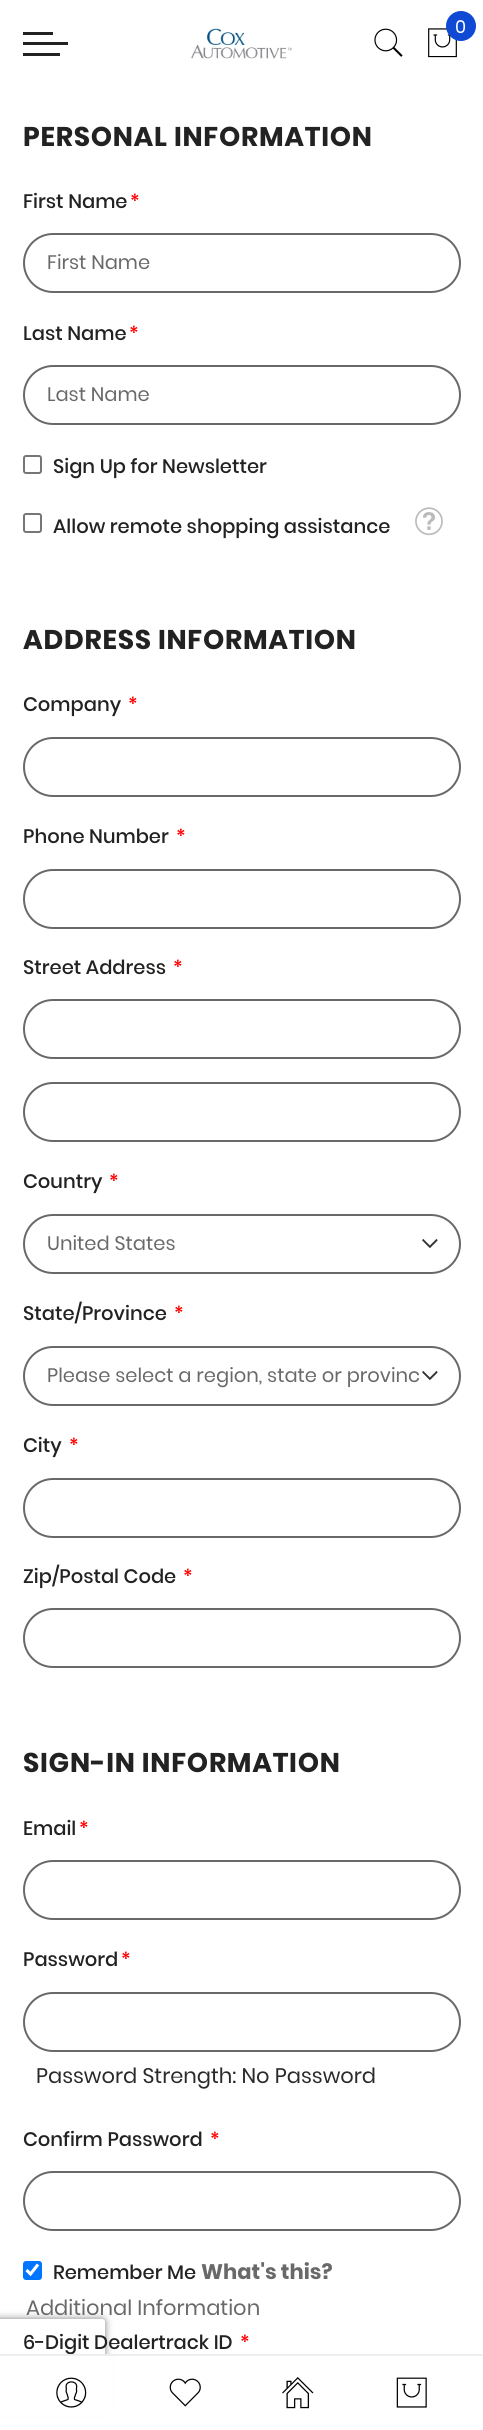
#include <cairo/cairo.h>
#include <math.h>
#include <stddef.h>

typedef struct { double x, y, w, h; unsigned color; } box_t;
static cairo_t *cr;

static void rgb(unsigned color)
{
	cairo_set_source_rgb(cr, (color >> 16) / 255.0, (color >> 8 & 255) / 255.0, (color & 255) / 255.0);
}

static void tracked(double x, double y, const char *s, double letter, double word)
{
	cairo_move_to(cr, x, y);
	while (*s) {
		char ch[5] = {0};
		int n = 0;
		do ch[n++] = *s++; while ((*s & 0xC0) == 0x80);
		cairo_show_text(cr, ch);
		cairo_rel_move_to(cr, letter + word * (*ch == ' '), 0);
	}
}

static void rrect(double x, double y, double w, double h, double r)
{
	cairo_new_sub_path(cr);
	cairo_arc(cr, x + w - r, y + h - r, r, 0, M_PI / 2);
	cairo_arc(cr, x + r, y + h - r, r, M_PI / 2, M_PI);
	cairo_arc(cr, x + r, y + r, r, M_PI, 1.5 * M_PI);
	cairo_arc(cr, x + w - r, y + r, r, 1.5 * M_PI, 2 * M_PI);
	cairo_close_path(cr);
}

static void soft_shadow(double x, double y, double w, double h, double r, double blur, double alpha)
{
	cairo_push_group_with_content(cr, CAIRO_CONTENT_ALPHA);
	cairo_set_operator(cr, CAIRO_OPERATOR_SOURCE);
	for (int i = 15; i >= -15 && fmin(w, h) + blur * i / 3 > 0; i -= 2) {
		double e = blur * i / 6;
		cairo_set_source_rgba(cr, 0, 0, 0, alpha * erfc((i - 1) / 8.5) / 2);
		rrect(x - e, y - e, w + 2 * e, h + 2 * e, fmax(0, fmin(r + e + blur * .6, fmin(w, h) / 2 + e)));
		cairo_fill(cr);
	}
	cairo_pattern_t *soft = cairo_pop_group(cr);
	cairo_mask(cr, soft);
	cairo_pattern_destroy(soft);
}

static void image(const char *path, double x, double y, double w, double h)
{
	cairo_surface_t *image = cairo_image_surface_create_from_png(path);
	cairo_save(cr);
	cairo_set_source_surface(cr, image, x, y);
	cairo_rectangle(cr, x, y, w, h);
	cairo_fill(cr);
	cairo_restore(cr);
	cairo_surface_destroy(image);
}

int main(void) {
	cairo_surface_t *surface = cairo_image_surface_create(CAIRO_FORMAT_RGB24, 483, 2430);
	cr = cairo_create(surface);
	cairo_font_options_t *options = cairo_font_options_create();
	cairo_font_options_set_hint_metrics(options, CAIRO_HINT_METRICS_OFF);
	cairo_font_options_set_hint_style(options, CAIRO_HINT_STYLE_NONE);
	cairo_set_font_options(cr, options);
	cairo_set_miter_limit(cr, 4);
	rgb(0xffffff);
	cairo_paint(cr);
	{
		static const box_t items[] = {
			{23, 32, 30, 3, 0x222222},
			{23, 42, 45, 3, 0x222222},
			{23, 53, 37, 3, 0x222222},
		};
		for (size_t i = 0; i < sizeof items / sizeof *items; i++) {
			rgb(items[i].color);
			cairo_rectangle(cr, items[i].x, items[i].y, items[i].w, items[i].h);
			cairo_fill(cr);
		}
	}
	image("img/1.png", 191, 28, 102, 31);
	image("img/2.png", 374, 28, 29, 29);
	image("img/3.png", 428, 28, 29, 30);
	rgb(0x104ad4);
	cairo_arc(cr, 461, 26, 15, 0, 2 * M_PI);
	cairo_fill(cr);
	cairo_save(cr);
	cairo_set_fill_rule(cr, CAIRO_FILL_RULE_EVEN_ODD);
	cairo_new_path(cr);
	cairo_move_to(cr, 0, 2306);
	cairo_line_to(cr, 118, 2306);
	cairo_line_to(cr, 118, 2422);
	cairo_line_to(cr, 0, 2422);
	cairo_close_path(cr);
	cairo_move_to(cr, -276, 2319);
	cairo_line_to(cr, 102, 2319);
	cairo_curve_to(cr, 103.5, 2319, 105, 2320.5, 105, 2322);
	cairo_line_to(cr, 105, 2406);
	cairo_curve_to(cr, 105, 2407.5, 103.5, 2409, 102, 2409);
	cairo_line_to(cr, -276, 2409);
	cairo_curve_to(cr, -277.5, 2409, -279, 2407.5, -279, 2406);
	cairo_line_to(cr, -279, 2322);
	cairo_curve_to(cr, -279, 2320.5, -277.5, 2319, -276, 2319);
	cairo_close_path(cr);
	cairo_clip(cr);
	rgb(0x808080);
	soft_shadow(-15, 2319, 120, 90, 3, 4, 1);
	cairo_restore(cr);
	rgb(0xffffff);
	cairo_rectangle(cr, 0, 2356, 113, 61);
	cairo_fill(cr);
	image("img/4.png", 56, 2377, 31, 31);
	image("img/5.png", 169, 2378, 32, 29);
	image("img/6.png", 282, 2377, 32, 32);
	image("img/7.png", 396, 2377, 31, 31);
	rrect(24, 234, 436, 58, 29);
	rgb(0x696969);
	cairo_stroke(cr);
	rrect(24, 366, 436, 58, 29);
	cairo_stroke(cr);
	rrect(24, 456, 17, 17, 2);
	rgb(0x767676);
	cairo_stroke(cr);
	rrect(24, 514, 17, 18, 2);
	cairo_stroke(cr);
	image("img/8.png", 415, 507, 28, 29);
	rrect(24, 738, 436, 58, 29);
	rgb(0x696969);
	cairo_stroke(cr);
	rrect(24, 870, 436, 58, 29);
	cairo_stroke(cr);
	rrect(24, 1000, 436, 58, 29);
	cairo_stroke(cr);
	rrect(24, 1083, 436, 58, 29);
	cairo_stroke(cr);
	image("img/9.png", 422, 1238, 16, 11);
	rrect(24, 1215, 436, 58, 29);
	cairo_stroke(cr);
	image("img/9.png", 422, 1370, 16, 11);
	rrect(24, 1347, 436, 58, 29);
	cairo_stroke(cr);
	rrect(24, 1479, 436, 58, 29);
	cairo_stroke(cr);
	rrect(24, 1609, 436, 58, 29);
	cairo_stroke(cr);
	rrect(24, 1861, 436, 58, 29);
	cairo_stroke(cr);
	rrect(24, 1993, 436, 58, 29);
	cairo_stroke(cr);
	rrect(24, 2172, 436, 58, 29);
	cairo_stroke(cr);
	rgb(0x0075ff);
	rrect(23, 2261, 19, 19, 3);
	cairo_fill(cr);
	cairo_new_path(cr);
	cairo_move_to(cr, 26.5, 2270);
	cairo_line_to(cr, 30.5, 2274);
	cairo_line_to(cr, 38, 2264.5);
	rgb(0xffffff);
	cairo_set_line_width(cr, 3.1);
	cairo_stroke(cr);
	cairo_select_font_face(cr, "Poppins", CAIRO_FONT_SLANT_NORMAL, CAIRO_FONT_WEIGHT_NORMAL);
	cairo_set_font_size(cr, 18);
	cairo_move_to(cr, 455, 33);
	cairo_show_text(cr, "0");
	cairo_select_font_face(cr, "Poppins", CAIRO_FONT_SLANT_NORMAL, CAIRO_FONT_WEIGHT_BOLD);
	cairo_set_font_size(cr, 27);
	rgb(0x222222);
	tracked(23, 146, "PERSONAL INFORMATION", 0.75, 0);
	cairo_select_font_face(cr, "Poppins Medium", CAIRO_FONT_SLANT_NORMAL, CAIRO_FONT_WEIGHT_NORMAL);
	cairo_set_font_size(cr, 19.5);
	cairo_move_to(cr, 23, 208);
	cairo_show_text(cr, "First Name");
	rgb(0xff0000);
	cairo_move_to(cr, 130, 208);
	cairo_show_text(cr, "*");
	cairo_select_font_face(cr, "Poppins", CAIRO_FONT_SLANT_NORMAL, CAIRO_FONT_WEIGHT_NORMAL);
	rgb(0x696969);
	cairo_move_to(cr, 47, 269);
	cairo_show_text(cr, "First Name");
	cairo_select_font_face(cr, "Poppins Medium", CAIRO_FONT_SLANT_NORMAL, CAIRO_FONT_WEIGHT_NORMAL);
	rgb(0x222222);
	cairo_move_to(cr, 23, 340);
	cairo_show_text(cr, "Last Name");
	rgb(0xff0000);
	cairo_move_to(cr, 129, 340);
	cairo_show_text(cr, "*");
	cairo_select_font_face(cr, "Poppins", CAIRO_FONT_SLANT_NORMAL, CAIRO_FONT_WEIGHT_NORMAL);
	rgb(0x696969);
	cairo_move_to(cr, 47, 401);
	cairo_show_text(cr, "Last Name");
	cairo_select_font_face(cr, "Poppins Medium", CAIRO_FONT_SLANT_NORMAL, CAIRO_FONT_WEIGHT_NORMAL);
	rgb(0x222222);
	cairo_move_to(cr, 53, 473);
	cairo_show_text(cr, "Sign Up for Newsletter");
	cairo_move_to(cr, 53, 533);
	cairo_show_text(cr, "Allow remote shopping assistance");
	cairo_select_font_face(cr, "Poppins", CAIRO_FONT_SLANT_NORMAL, CAIRO_FONT_WEIGHT_BOLD);
	cairo_set_font_size(cr, 27);
	tracked(23, 649, "ADDRESS INFORMATION", 0.75, 0);
	cairo_select_font_face(cr, "Poppins Medium", CAIRO_FONT_SLANT_NORMAL, CAIRO_FONT_WEIGHT_NORMAL);
	cairo_set_font_size(cr, 19.5);
	cairo_move_to(cr, 23, 711);
	cairo_show_text(cr, "Company");
	rgb(0xff0000);
	cairo_move_to(cr, 128, 711);
	cairo_show_text(cr, "*");
	rgb(0x222222);
	cairo_move_to(cr, 23, 843);
	cairo_show_text(cr, "Phone Number");
	rgb(0xff0000);
	cairo_move_to(cr, 176, 843);
	cairo_show_text(cr, "*");
	rgb(0x222222);
	cairo_move_to(cr, 23, 974);
	cairo_show_text(cr, "Street Address");
	rgb(0xff0000);
	cairo_move_to(cr, 173, 974);
	cairo_show_text(cr, "*");
	rgb(0x222222);
	cairo_move_to(cr, 23, 1188);
	cairo_show_text(cr, "Country");
	rgb(0xff0000);
	cairo_move_to(cr, 109, 1188);
	cairo_show_text(cr, "*");
	cairo_select_font_face(cr, "Poppins", CAIRO_FONT_SLANT_NORMAL, CAIRO_FONT_WEIGHT_NORMAL);
	rgb(0x696969);
	cairo_move_to(cr, 47, 1250);
	cairo_show_text(cr, "United States");
	cairo_select_font_face(cr, "Poppins Medium", CAIRO_FONT_SLANT_NORMAL, CAIRO_FONT_WEIGHT_NORMAL);
	rgb(0x222222);
	cairo_move_to(cr, 23, 1320);
	cairo_show_text(cr, "State/Province");
	rgb(0xff0000);
	cairo_move_to(cr, 174, 1320);
	cairo_show_text(cr, "*");
	cairo_select_font_face(cr, "Poppins", CAIRO_FONT_SLANT_NORMAL, CAIRO_FONT_WEIGHT_NORMAL);
	rgb(0x696969);
	cairo_move_to(cr, 47, 1382);
	cairo_show_text(cr, "Please select a region, state or provinc");
	cairo_select_font_face(cr, "Poppins Medium", CAIRO_FONT_SLANT_NORMAL, CAIRO_FONT_WEIGHT_NORMAL);
	rgb(0x222222);
	cairo_move_to(cr, 23, 1452);
	cairo_show_text(cr, "City");
	rgb(0xff0000);
	cairo_move_to(cr, 69, 1452);
	cairo_show_text(cr, "*");
	rgb(0x222222);
	cairo_move_to(cr, 23, 1583);
	cairo_show_text(cr, "Zip/Postal Code");
	rgb(0xff0000);
	cairo_move_to(cr, 183, 1583);
	cairo_show_text(cr, "*");
	cairo_select_font_face(cr, "Poppins", CAIRO_FONT_SLANT_NORMAL, CAIRO_FONT_WEIGHT_BOLD);
	cairo_set_font_size(cr, 27);
	rgb(0x222222);
	tracked(23, 1772, "SIGN-IN INFORMATION", 0.75, 0);
	cairo_select_font_face(cr, "Poppins Medium", CAIRO_FONT_SLANT_NORMAL, CAIRO_FONT_WEIGHT_NORMAL);
	cairo_set_font_size(cr, 19.5);
	cairo_move_to(cr, 23, 1835);
	cairo_show_text(cr, "Email");
	rgb(0xff0000);
	cairo_move_to(cr, 79, 1835);
	cairo_show_text(cr, "*");
	rgb(0x222222);
	cairo_move_to(cr, 23, 1966);
	cairo_show_text(cr, "Password");
	rgb(0xff0000);
	cairo_move_to(cr, 121, 1966);
	cairo_show_text(cr, "*");
	cairo_select_font_face(cr, "Poppins", CAIRO_FONT_SLANT_NORMAL, CAIRO_FONT_WEIGHT_NORMAL);
	cairo_set_font_size(cr, 21);
	rgb(0x2a2a2a);
	cairo_move_to(cr, 36, 2083);
	cairo_show_text(cr, "Password Strength: No Password");
	cairo_select_font_face(cr, "Poppins Medium", CAIRO_FONT_SLANT_NORMAL, CAIRO_FONT_WEIGHT_NORMAL);
	cairo_set_font_size(cr, 19.5);
	rgb(0x222222);
	cairo_move_to(cr, 23, 2146);
	cairo_show_text(cr, "Confirm Password");
	rgb(0xff0000);
	cairo_move_to(cr, 210, 2146);
	cairo_show_text(cr, "*");
	rgb(0x222222);
	cairo_move_to(cr, 53, 2279);
	cairo_show_text(cr, "Remember Me");
	cairo_select_font_face(cr, "Poppins", CAIRO_FONT_SLANT_NORMAL, CAIRO_FONT_WEIGHT_BOLD);
	cairo_set_font_size(cr, 21);
	rgb(0x696969);
	cairo_move_to(cr, 201, 2279);
	cairo_show_text(cr, "What's this?");
	cairo_select_font_face(cr, "Poppins", CAIRO_FONT_SLANT_NORMAL, CAIRO_FONT_WEIGHT_NORMAL);
	cairo_move_to(cr, 26, 2315);
	cairo_show_text(cr, "Additional Information");
	cairo_select_font_face(cr, "Poppins Medium", CAIRO_FONT_SLANT_NORMAL, CAIRO_FONT_WEIGHT_NORMAL);
	cairo_set_font_size(cr, 19.5);
	rgb(0x222222);
	cairo_move_to(cr, 23, 2349);
	cairo_show_text(cr, "6-Digit Dealertrack ID");
	rgb(0xeeeeee);
	cairo_rectangle(cr, 0, 2354, 483, 2);
	cairo_fill(cr);
	rgb(0xff0000);
	cairo_move_to(cr, 240, 2349);
	cairo_show_text(cr, "*");
	cairo_surface_write_to_png(surface, "page.png");
	cairo_font_options_destroy(options);
	cairo_destroy(cr);
	cairo_surface_destroy(surface);
	return 0;
}
